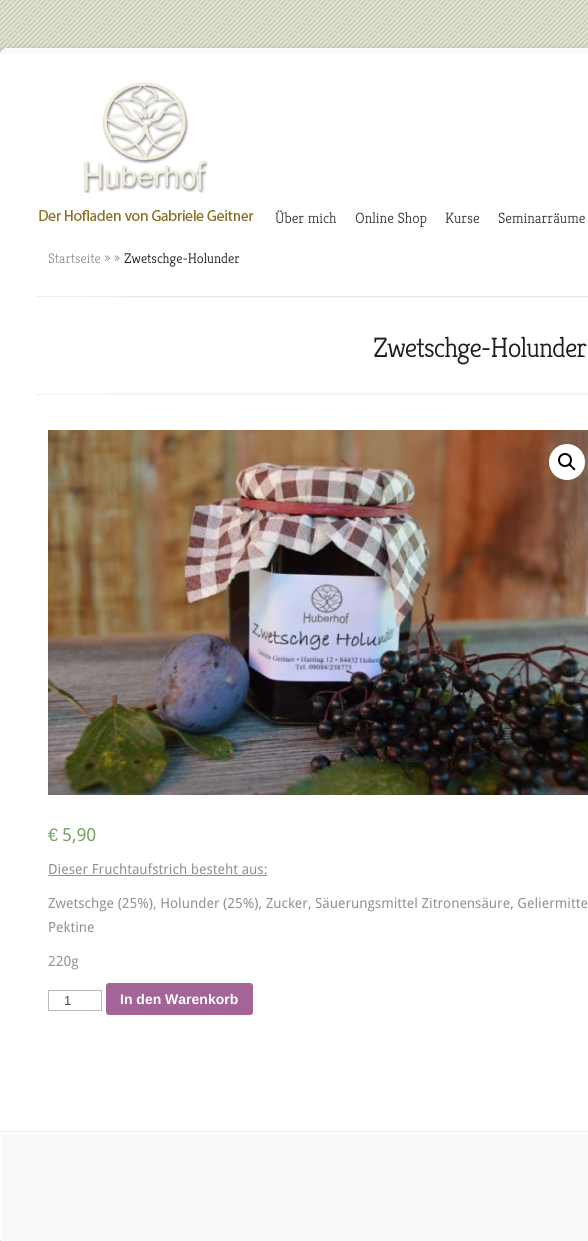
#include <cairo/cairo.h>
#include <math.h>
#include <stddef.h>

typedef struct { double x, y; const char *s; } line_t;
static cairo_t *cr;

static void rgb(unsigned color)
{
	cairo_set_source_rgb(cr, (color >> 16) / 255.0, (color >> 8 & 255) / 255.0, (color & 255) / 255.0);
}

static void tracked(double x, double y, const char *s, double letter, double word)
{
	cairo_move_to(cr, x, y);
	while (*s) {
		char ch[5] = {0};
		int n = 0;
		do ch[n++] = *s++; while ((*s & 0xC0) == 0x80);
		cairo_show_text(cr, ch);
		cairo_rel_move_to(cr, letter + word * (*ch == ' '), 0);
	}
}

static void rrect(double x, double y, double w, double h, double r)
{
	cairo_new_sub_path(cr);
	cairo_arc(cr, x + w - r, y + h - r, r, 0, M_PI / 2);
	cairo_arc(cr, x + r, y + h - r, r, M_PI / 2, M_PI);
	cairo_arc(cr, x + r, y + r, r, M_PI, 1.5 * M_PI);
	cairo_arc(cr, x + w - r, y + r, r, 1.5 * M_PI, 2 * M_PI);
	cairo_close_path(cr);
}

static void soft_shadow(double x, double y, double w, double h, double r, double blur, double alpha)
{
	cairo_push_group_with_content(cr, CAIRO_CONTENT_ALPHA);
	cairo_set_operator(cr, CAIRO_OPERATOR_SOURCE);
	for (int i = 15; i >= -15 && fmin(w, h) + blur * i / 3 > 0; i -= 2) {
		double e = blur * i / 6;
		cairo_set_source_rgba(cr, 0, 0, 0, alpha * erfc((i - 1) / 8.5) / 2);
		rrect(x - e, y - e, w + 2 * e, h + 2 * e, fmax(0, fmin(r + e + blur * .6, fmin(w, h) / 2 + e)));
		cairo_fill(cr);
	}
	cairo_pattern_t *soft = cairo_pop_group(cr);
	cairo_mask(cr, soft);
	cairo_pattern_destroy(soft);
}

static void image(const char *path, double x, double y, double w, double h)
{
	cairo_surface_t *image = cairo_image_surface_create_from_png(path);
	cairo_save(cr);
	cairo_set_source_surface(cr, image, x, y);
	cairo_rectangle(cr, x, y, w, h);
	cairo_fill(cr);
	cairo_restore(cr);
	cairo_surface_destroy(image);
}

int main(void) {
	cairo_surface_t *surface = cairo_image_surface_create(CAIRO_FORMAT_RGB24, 588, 1241);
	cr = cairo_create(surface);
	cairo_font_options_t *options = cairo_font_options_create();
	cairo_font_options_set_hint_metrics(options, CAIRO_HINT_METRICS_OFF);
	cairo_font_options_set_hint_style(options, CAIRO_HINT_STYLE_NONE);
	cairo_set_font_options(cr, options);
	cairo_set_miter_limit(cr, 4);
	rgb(0xdfe0cc);
	cairo_paint(cr);
	image("img/1.png", 0, 0, 588, 1241);
	rgb(0x000000);
	soft_shadow(0, 48, 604, 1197, 7, 3, 0.1);
	rgb(0xffffff);
	rrect(0, 48, 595, 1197, 7);
	cairo_fill(cr);
	image("img/2.png", 1, 49, 587, 5);
	image("img/3.png", 39, 82, 215, 139);
	image("img/4.png", 36, 296, 552, 2);
	image("img/5.png", 36, 392, 552, 3);
	image("img/6.png", 48, 430, 540, 365);
	cairo_arc(cr, 567, 462, 18, 0, 2 * M_PI);
	cairo_fill(cr);
	cairo_arc(cr, 565, 460, 6, 0, 2 * M_PI);
	rgb(0x000000);
	cairo_stroke(cr);
	cairo_new_path(cr);
	cairo_move_to(cr, 569, 464);
	cairo_curve_to(cr, 570.5, 463, 572, 465.5, 572.5, 466.5);
	cairo_curve_to(cr, 573.5, 467, 576, 468.5, 575, 470);
	cairo_curve_to(cr, 573.5, 471, 572, 468.5, 571.5, 467.5);
	cairo_curve_to(cr, 570.5, 467, 568, 465.5, 569, 464);
	cairo_close_path(cr);
	cairo_fill(cr);
	rgb(0x929292);
	cairo_rectangle(cr, 48, 875, 219, 1);
	cairo_fill(cr);
	cairo_rectangle(cr, 48.5, 990.5, 53, 20);
	rgb(0xbbbbbb);
	cairo_set_line_width(cr, 1);
	cairo_stroke(cr);
	rgb(0xa46497);
	rrect(106, 983, 147, 32, 3);
	cairo_fill(cr);
	rgb(0xececec);
	cairo_rectangle(cr, 0, 1131, 588, 1);
	cairo_fill(cr);
	rgb(0xf9f9f9);
	cairo_new_path(cr);
	cairo_move_to(cr, 1, 1133);
	cairo_line_to(cr, 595, 1133);
	cairo_line_to(cr, 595, 1238);
	cairo_curve_to(cr, 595, 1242, 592, 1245, 588, 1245);
	cairo_line_to(cr, 8, 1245);
	cairo_curve_to(cr, 4, 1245, 1, 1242, 1, 1238);
	cairo_close_path(cr);
	cairo_fill(cr);
	cairo_select_font_face(cr, "Kreon Light", CAIRO_FONT_SLANT_NORMAL, CAIRO_FONT_WEIGHT_NORMAL);
	cairo_set_font_size(cr, 15);
	rgb(0x393939);
	{
		static const line_t items[] = {
			{275, 223, "Über mich"},
			{355, 223, "Online Shop"},
			{445, 223, "Kurse"},
			{498, 223, "Seminarräume"},
		};
		for (size_t i = 0; i < sizeof items / sizeof *items; i++) {
			cairo_move_to(cr, items[i].x, items[i].y);
			cairo_show_text(cr, items[i].s);
		}
	}
	cairo_set_font_size(cr, 14);
	rgb(0x929292);
	cairo_move_to(cr, 48, 263);
	cairo_show_text(cr, "Startseite » »");
	rgb(0x1d1d1d);
	cairo_move_to(cr, 124, 263);
	cairo_show_text(cr, "Zwetschge-Holunder");
	cairo_set_font_size(cr, 28);
	tracked(373, 357, "Zwetschge-Holunder", -1, 0);
	cairo_select_font_face(cr, "Liberation Sans", CAIRO_FONT_SLANT_NORMAL, CAIRO_FONT_WEIGHT_NORMAL);
	cairo_set_font_size(cr, 18);
	rgb(0x77a464);
	cairo_move_to(cr, 48, 841);
	cairo_show_text(cr, "€");
	cairo_select_font_face(cr, "Droid Sans", CAIRO_FONT_SLANT_NORMAL, CAIRO_FONT_WEIGHT_NORMAL);
	cairo_move_to(cr, 62, 841);
	cairo_show_text(cr, "5,90");
	cairo_set_font_size(cr, 14);
	rgb(0x929292);
	{
		static const line_t items[] = {
			{48, 874, "Dieser Fruchtaufstrich besteht aus:"},
			{48, 908, "Zwetschge (25%), Holunder (25%), Zucker, Säuerungsmittel Zitronensäure, Geliermitte"},
			{48, 932, "Pektine"},
			{48, 966, "220g"},
		};
		for (size_t i = 0; i < sizeof items / sizeof *items; i++) {
			cairo_move_to(cr, items[i].x, items[i].y);
			cairo_show_text(cr, items[i].s);
		}
	}
	cairo_select_font_face(cr, "Liberation Sans", CAIRO_FONT_SLANT_NORMAL, CAIRO_FONT_WEIGHT_NORMAL);
	cairo_set_font_size(cr, 13);
	rgb(0x4e4e4e);
	cairo_move_to(cr, 64, 1005);
	cairo_show_text(cr, "1");
	cairo_select_font_face(cr, "Liberation Sans", CAIRO_FONT_SLANT_NORMAL, CAIRO_FONT_WEIGHT_BOLD);
	cairo_set_font_size(cr, 14);
	rgb(0xffffff);
	cairo_move_to(cr, 120, 1004);
	cairo_show_text(cr, "In den Warenkorb");
	cairo_surface_write_to_png(surface, "page.png");
	cairo_font_options_destroy(options);
	cairo_destroy(cr);
	cairo_surface_destroy(surface);
	return 0;
}
